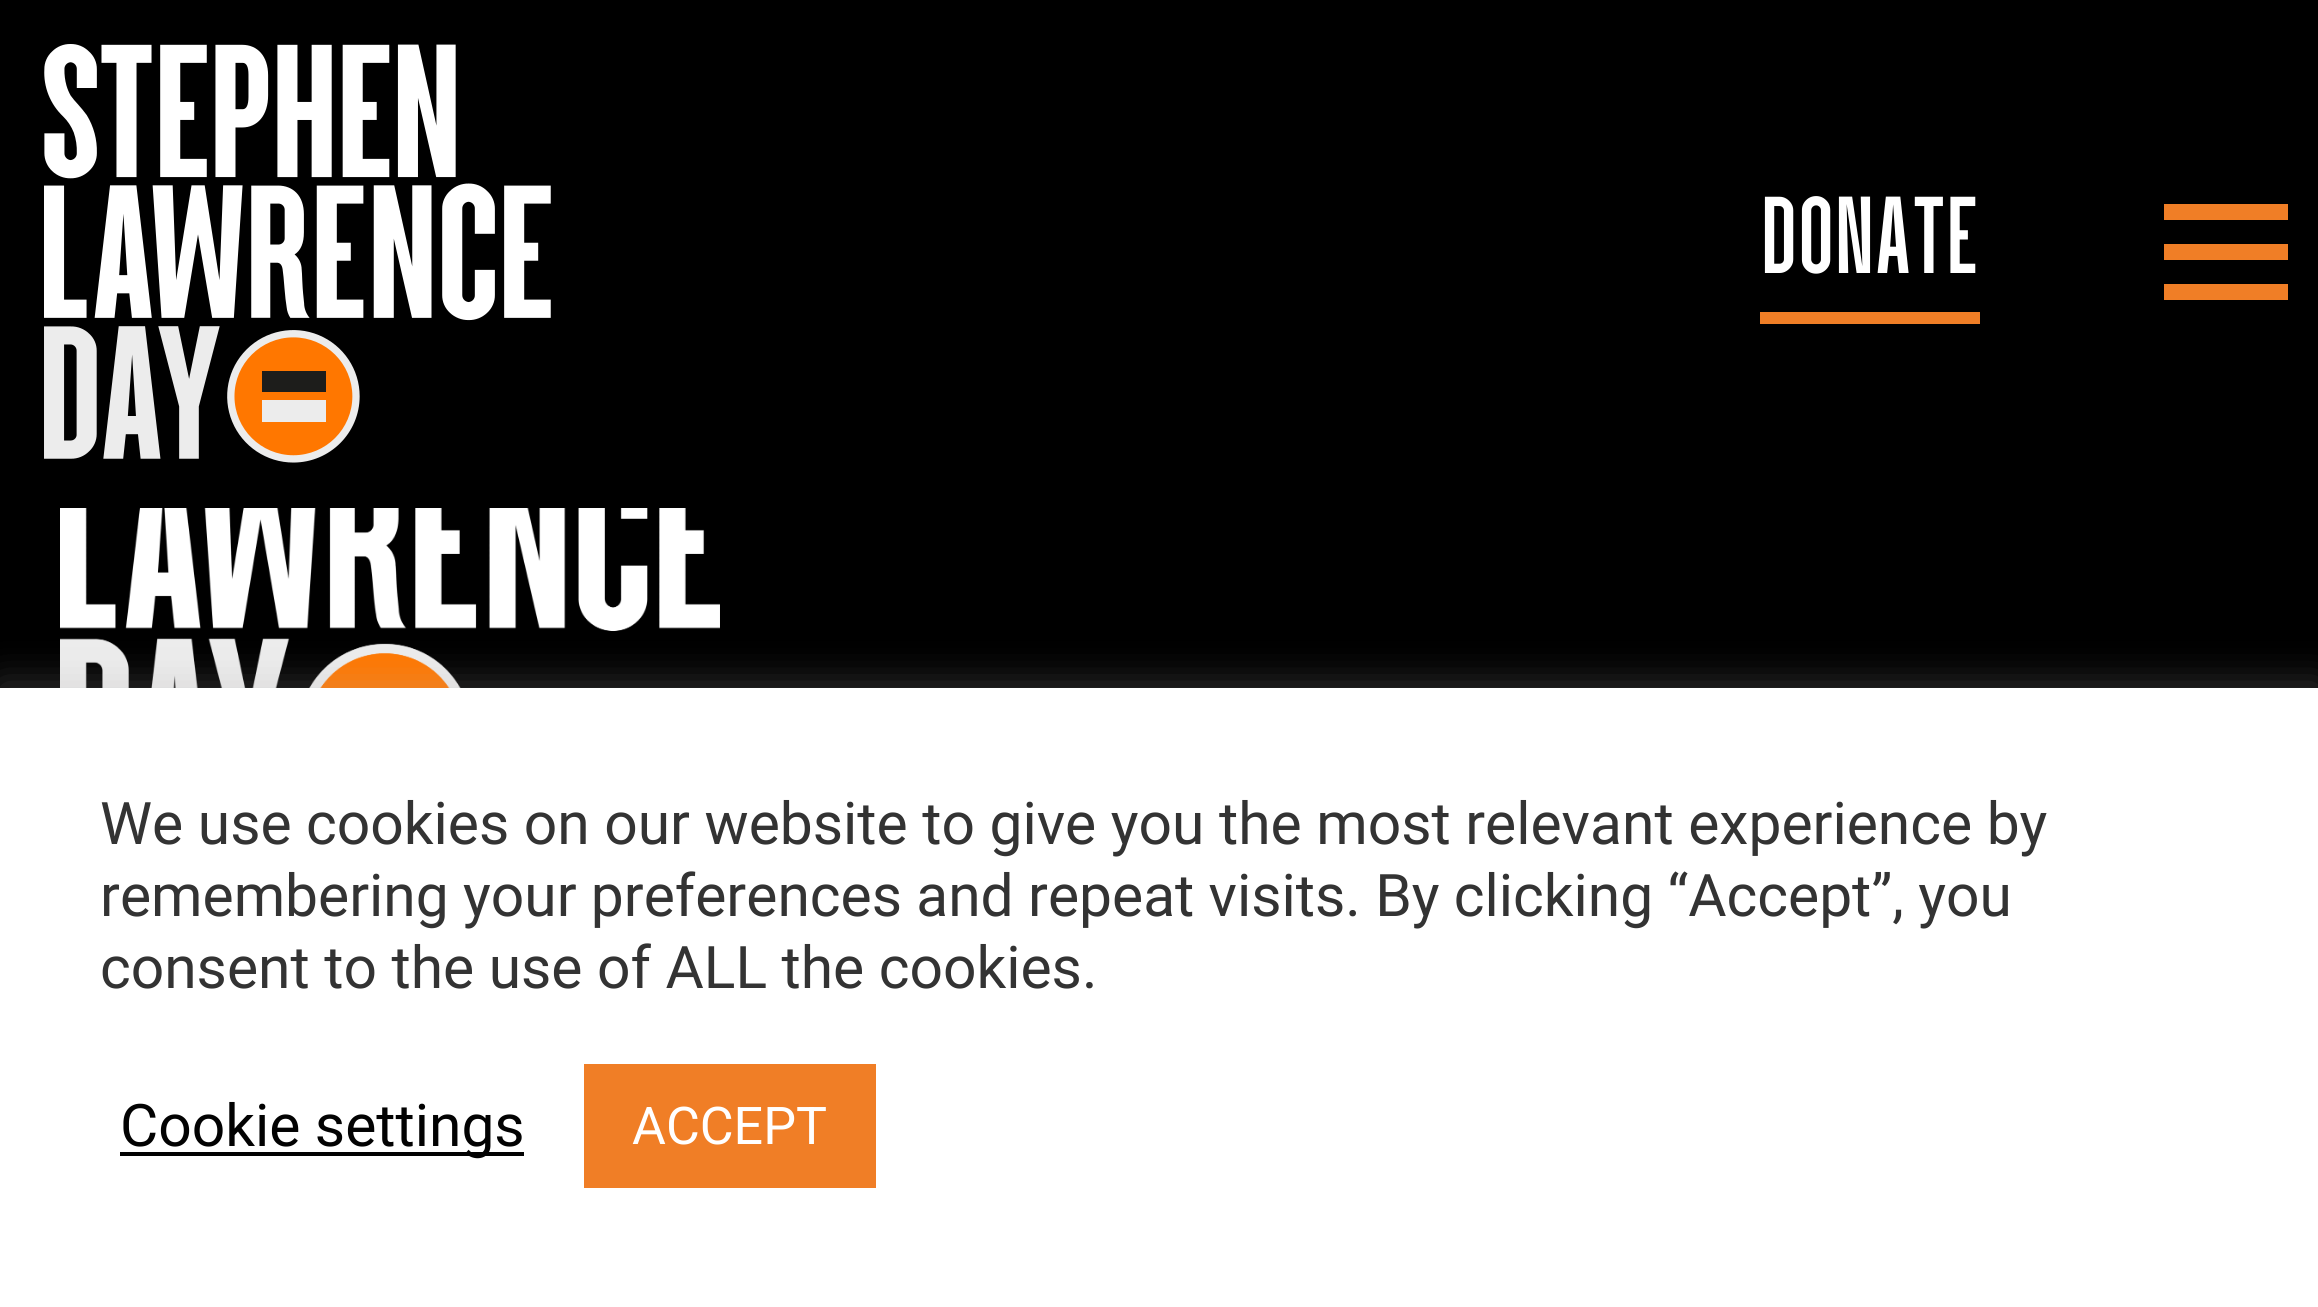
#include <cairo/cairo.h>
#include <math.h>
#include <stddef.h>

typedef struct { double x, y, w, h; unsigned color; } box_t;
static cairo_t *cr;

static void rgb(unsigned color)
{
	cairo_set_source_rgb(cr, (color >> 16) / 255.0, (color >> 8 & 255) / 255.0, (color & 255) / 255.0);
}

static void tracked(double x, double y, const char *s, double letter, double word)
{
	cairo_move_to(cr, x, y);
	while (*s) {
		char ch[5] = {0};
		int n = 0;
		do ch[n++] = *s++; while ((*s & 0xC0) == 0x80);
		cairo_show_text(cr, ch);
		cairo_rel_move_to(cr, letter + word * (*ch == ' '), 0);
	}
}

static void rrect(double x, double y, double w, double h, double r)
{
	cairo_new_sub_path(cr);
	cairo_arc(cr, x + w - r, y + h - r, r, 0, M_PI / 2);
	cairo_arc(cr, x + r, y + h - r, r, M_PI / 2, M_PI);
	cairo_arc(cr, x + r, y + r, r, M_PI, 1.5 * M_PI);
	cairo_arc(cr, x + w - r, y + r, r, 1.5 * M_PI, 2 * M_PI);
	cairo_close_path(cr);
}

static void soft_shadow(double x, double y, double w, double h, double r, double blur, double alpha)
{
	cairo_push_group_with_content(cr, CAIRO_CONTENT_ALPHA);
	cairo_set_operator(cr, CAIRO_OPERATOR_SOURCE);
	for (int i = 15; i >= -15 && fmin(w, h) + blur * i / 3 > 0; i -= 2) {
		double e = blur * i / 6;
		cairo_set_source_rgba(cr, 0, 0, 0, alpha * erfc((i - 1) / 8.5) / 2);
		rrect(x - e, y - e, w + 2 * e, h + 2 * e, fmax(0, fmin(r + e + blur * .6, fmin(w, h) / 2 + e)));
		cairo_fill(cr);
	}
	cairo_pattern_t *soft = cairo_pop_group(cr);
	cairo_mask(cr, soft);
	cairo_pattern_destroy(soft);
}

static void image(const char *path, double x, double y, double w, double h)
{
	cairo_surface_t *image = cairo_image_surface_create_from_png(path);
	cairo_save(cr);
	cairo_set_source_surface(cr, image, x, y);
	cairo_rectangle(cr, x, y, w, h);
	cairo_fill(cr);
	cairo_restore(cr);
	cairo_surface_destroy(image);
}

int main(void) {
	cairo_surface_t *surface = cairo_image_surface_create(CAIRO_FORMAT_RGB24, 2318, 1307);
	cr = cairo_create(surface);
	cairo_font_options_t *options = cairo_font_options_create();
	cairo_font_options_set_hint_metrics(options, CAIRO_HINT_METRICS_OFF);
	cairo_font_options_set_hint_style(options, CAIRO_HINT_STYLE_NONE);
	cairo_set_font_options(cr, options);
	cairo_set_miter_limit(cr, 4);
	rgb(0x000000);
	cairo_paint(cr);
	image("img/1.png", 44, 44, 507, 419);
	{
		static const box_t items[] = {
			{1760, 312, 220, 12, 0xf07e26},
			{2164, 204, 124, 16, 0xf07e26},
			{2164, 244, 124, 16, 0xf07e26},
			{2164, 284, 124, 16, 0xf07e26},
		};
		for (size_t i = 0; i < sizeof items / sizeof *items; i++) {
			rgb(items[i].color);
			cairo_rectangle(cr, items[i].x, items[i].y, items[i].w, items[i].h);
			cairo_fill(cr);
		}
	}
	image("img/2.png", 60, 508, 660, 180);
	rgb(0xacabab);
	soft_shadow(0, 684, 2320, 620, 0, 20, 0.3);
	{
		static const box_t items[] = {
			{0, 688, 2318, 619, 0xffffff},
			{120, 1152, 404, 4, 0x020202},
			{584, 1064, 292, 124, 0xf07e26},
		};
		for (size_t i = 0; i < sizeof items / sizeof *items; i++) {
			rgb(items[i].color);
			cairo_rectangle(cr, items[i].x, items[i].y, items[i].w, items[i].h);
			cairo_fill(cr);
		}
	}
	cairo_select_font_face(cr, "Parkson", CAIRO_FONT_SLANT_NORMAL, CAIRO_FONT_WEIGHT_BOLD);
	cairo_set_font_size(cr, 112);
	rgb(0xffffff);
	tracked(1761, 273, "DONATE", 4, 0);
	cairo_select_font_face(cr, "Roboto", CAIRO_FONT_SLANT_NORMAL, CAIRO_FONT_WEIGHT_NORMAL);
	cairo_set_font_size(cr, 58.7);
	rgb(0x333333);
	cairo_move_to(cr, 100, 844);
	cairo_show_text(cr, "We use cookies on our website to give you the most relevant experience by");
	tracked(100, 916, "remembering your preferences and repeat visits. By clicking “Accept”, you", 0, -0.25);
	cairo_move_to(cr, 100, 988);
	cairo_show_text(cr, "consent to the use of ALL the cookies.");
	rgb(0x020202);
	cairo_move_to(cr, 120, 1146);
	cairo_show_text(cr, "Cookie settings");
	cairo_set_font_size(cr, 52);
	rgb(0xffffff);
	cairo_move_to(cr, 632, 1144);
	cairo_show_text(cr, "ACCEPT");
	cairo_surface_write_to_png(surface, "page.png");
	cairo_font_options_destroy(options);
	cairo_destroy(cr);
	cairo_surface_destroy(surface);
	return 0;
}
